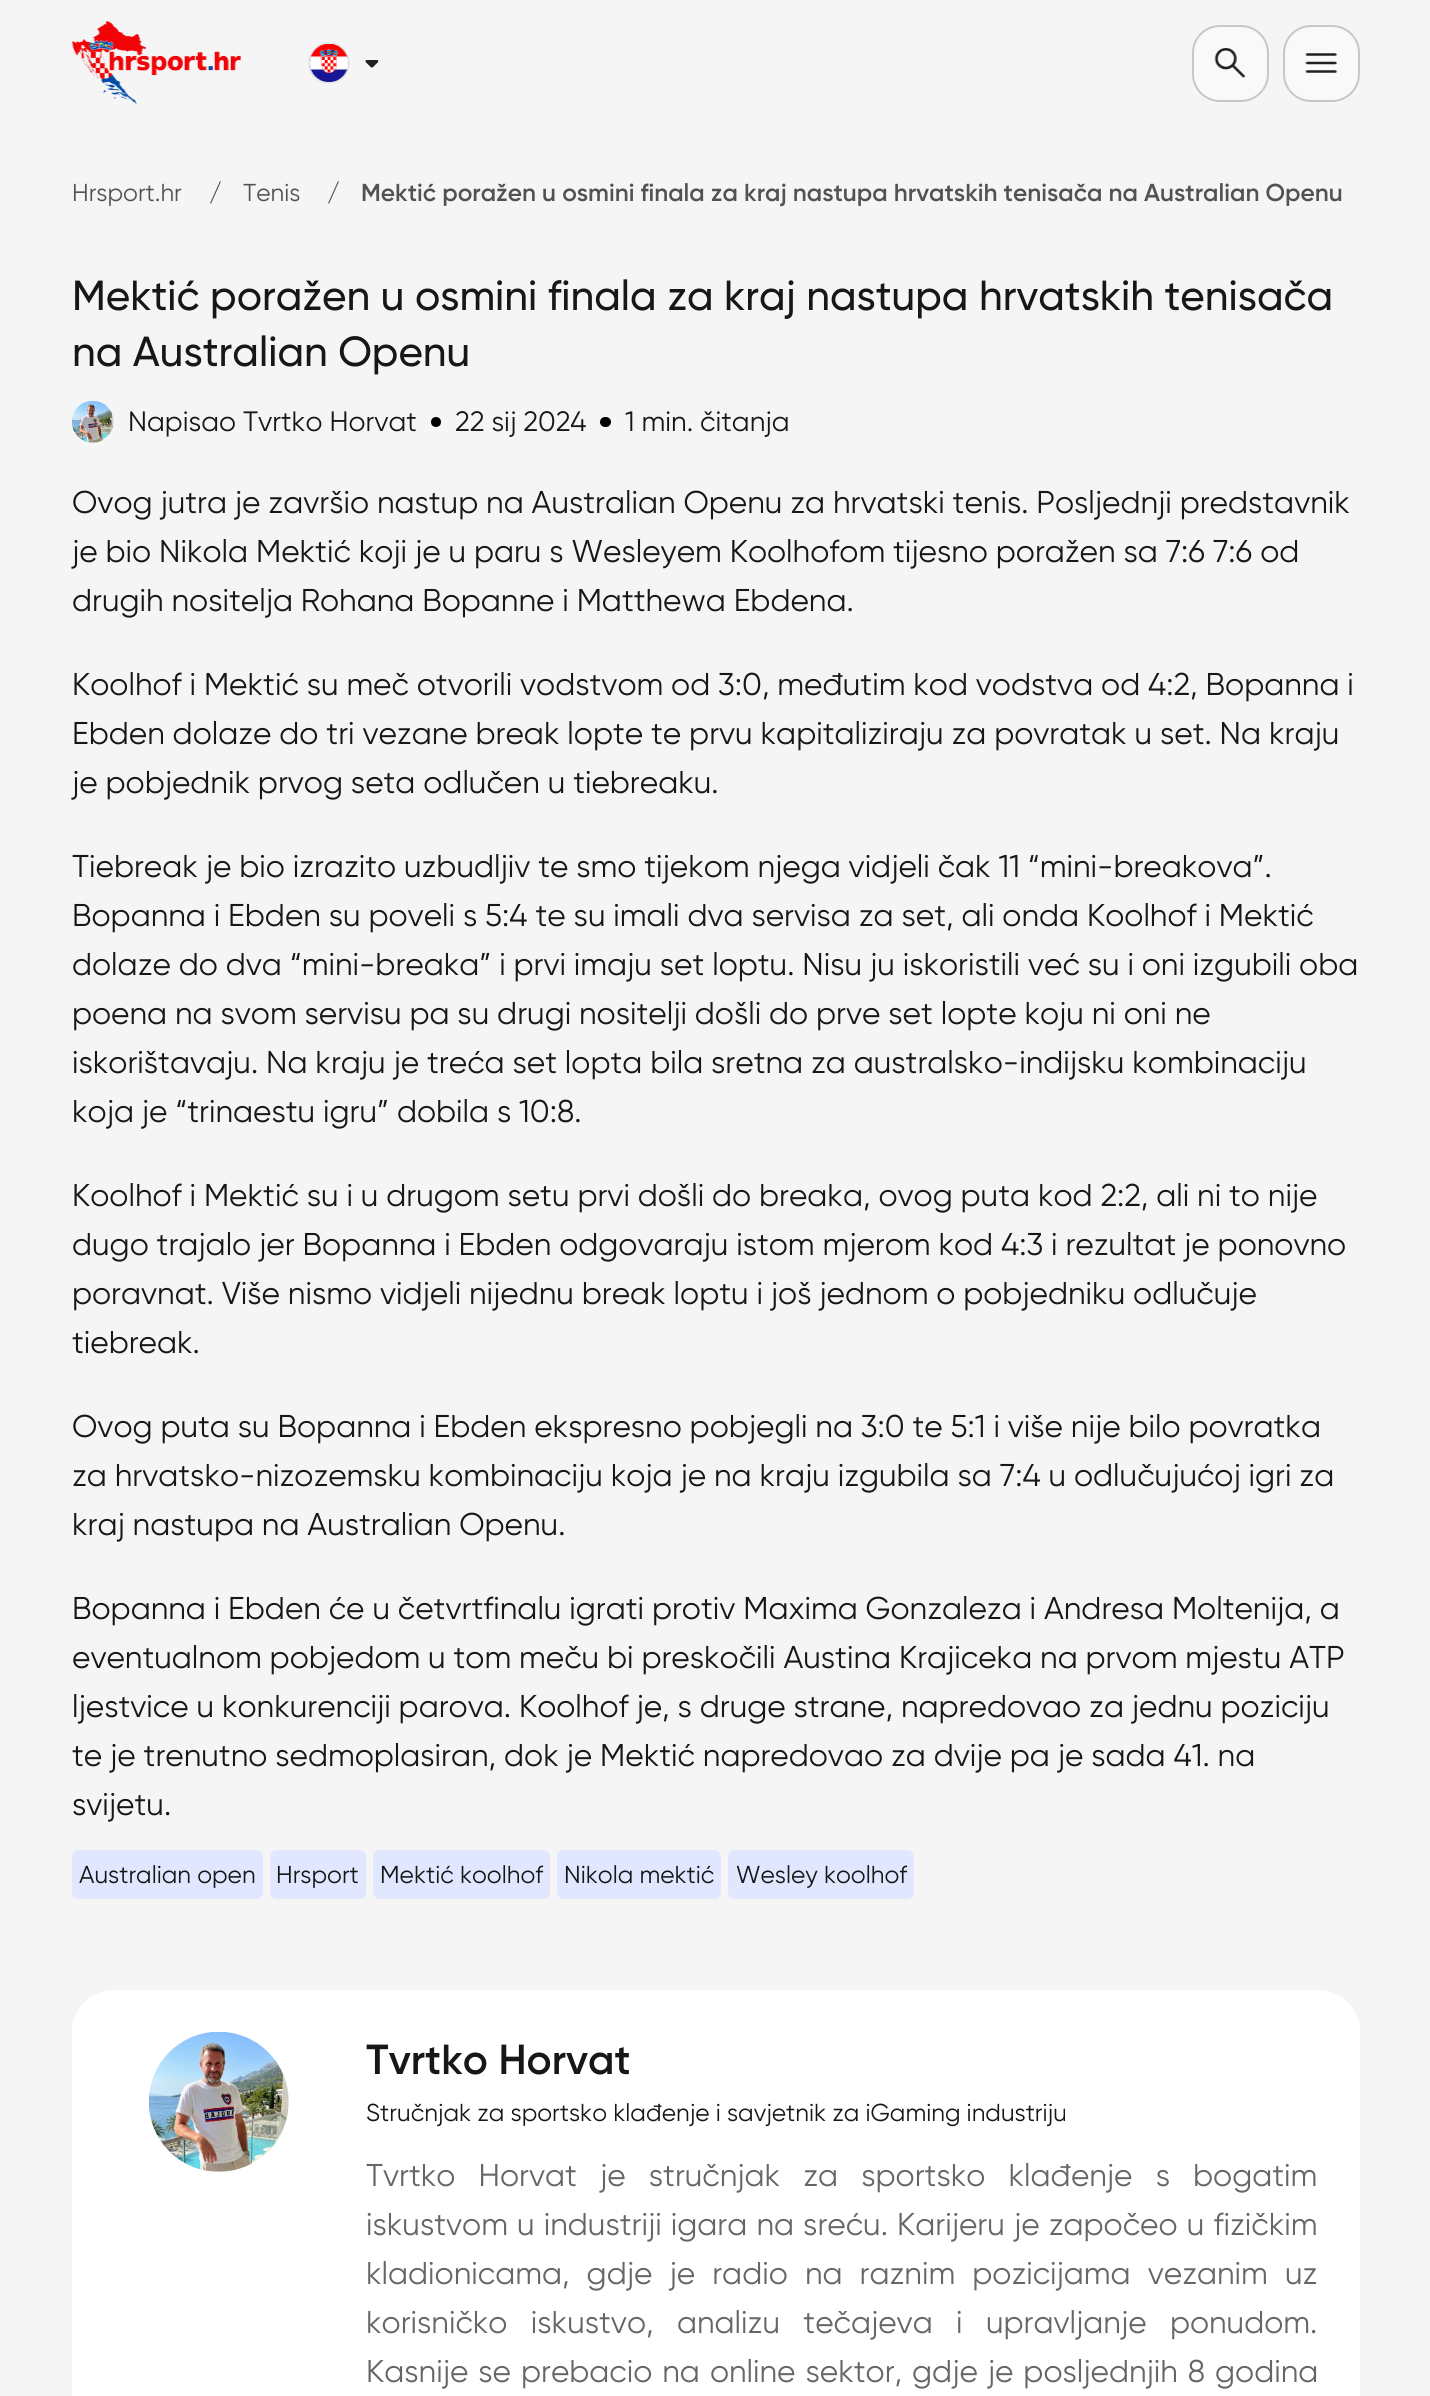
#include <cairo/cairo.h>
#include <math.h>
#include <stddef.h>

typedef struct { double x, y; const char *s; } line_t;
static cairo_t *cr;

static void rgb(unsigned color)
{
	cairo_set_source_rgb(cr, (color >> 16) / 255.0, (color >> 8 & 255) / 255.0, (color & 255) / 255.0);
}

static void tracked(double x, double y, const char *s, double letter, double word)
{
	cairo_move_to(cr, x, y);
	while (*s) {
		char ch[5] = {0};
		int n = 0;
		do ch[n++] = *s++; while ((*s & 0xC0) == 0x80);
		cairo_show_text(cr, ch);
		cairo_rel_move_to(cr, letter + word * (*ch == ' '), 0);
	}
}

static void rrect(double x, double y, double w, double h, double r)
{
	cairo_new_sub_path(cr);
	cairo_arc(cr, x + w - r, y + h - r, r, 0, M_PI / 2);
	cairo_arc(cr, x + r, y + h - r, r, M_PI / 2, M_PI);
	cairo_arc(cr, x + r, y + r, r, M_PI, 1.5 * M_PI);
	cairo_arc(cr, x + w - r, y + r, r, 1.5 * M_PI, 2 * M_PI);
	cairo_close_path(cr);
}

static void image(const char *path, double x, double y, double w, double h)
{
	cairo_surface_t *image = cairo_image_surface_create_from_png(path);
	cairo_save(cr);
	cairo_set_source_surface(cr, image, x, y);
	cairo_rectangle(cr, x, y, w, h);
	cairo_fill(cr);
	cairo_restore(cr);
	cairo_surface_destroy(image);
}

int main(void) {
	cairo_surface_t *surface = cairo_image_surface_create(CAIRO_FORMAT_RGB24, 1430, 2396);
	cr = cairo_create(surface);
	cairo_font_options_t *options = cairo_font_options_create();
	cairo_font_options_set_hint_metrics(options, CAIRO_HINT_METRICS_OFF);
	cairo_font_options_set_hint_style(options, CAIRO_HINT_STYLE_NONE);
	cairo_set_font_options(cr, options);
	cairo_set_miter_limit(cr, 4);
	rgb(0xf5f5f5);
	cairo_paint(cr);
	image("img/1.png", 72, 21, 169, 83);
	cairo_arc(cr, 329, 63, 20, 0, 2 * M_PI);
	rgb(0xe9e9e9);
	cairo_stroke(cr);
	image("img/2.png", 309, 44, 40, 38);
	image("img/3.png", 365, 60, 14, 8);
	rgb(0xf9f9f9);
	rrect(1193, 26, 75, 75, 27);
	cairo_fill_preserve(cr);
	rgb(0xc7c7c7);
	cairo_stroke(cr);
	image("img/4.png", 1214, 48, 31, 30);
	rgb(0xf9f9f9);
	rrect(1284, 26, 75, 75, 27);
	cairo_fill_preserve(cr);
	rgb(0xc7c7c7);
	cairo_stroke(cr);
	image("img/5.png", 1305, 53, 32, 20);
	rgb(0xf9fafb);
	cairo_arc(cr, 93, 422, 21, 0, 2 * M_PI);
	cairo_fill(cr);
	image("img/6.png", 71, 400, 43, 43);
	rgb(0x000000);
	cairo_arc(cr, 436, 422, 5, 0, 2 * M_PI);
	cairo_fill(cr);
	rrect(600, 417, 11, 10, 5);
	cairo_fill(cr);
	rgb(0xe0e7ff);
	rrect(72, 1850, 191, 49, 7);
	cairo_fill(cr);
	rrect(270, 1850, 96, 49, 7);
	cairo_fill(cr);
	rrect(373, 1850, 177, 49, 7);
	cairo_fill(cr);
	rrect(557, 1850, 164, 49, 7);
	cairo_fill(cr);
	rrect(728, 1850, 186, 49, 7);
	cairo_fill(cr);
	rgb(0xffffff);
	rrect(72, 1990, 1288, 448, 42);
	cairo_fill(cr);
	image("img/7.png", 148, 2031, 141, 141);
	cairo_select_font_face(cr, "Gilroy", CAIRO_FONT_SLANT_NORMAL, CAIRO_FONT_WEIGHT_NORMAL);
	cairo_set_font_size(cr, 24.5);
	rgb(0x525252);
	{
		static const line_t items[] = {
			{72, 201, "Hrsport.hr"},
			{209, 201, "/"},
			{243, 201, "Tenis"},
			{327, 201, "/"},
		};
		for (size_t i = 0; i < sizeof items / sizeof *items; i++) {
			cairo_move_to(cr, items[i].x, items[i].y);
			cairo_show_text(cr, items[i].s);
		}
	}
	cairo_select_font_face(cr, "Gilroy SemiBold", CAIRO_FONT_SLANT_NORMAL, CAIRO_FONT_WEIGHT_NORMAL);
	cairo_move_to(cr, 361, 201);
	cairo_show_text(cr, "Mektić poražen u osmini finala za kraj nastupa hrvatskih tenisača na Australian Openu");
	cairo_select_font_face(cr, "Gilroy Medium", CAIRO_FONT_SLANT_NORMAL, CAIRO_FONT_WEIGHT_NORMAL);
	cairo_set_font_size(cr, 42);
	rgb(0x171717);
	cairo_move_to(cr, 72, 310);
	cairo_show_text(cr, "Mektić poražen u osmini finala za kraj nastupa hrvatskih tenisača");
	cairo_move_to(cr, 72, 366);
	cairo_show_text(cr, "na Australian Openu");
	cairo_select_font_face(cr, "Gilroy", CAIRO_FONT_SLANT_NORMAL, CAIRO_FONT_WEIGHT_NORMAL);
	cairo_set_font_size(cr, 28);
	{
		static const line_t items[] = {
			{128, 431, "Napisao Tvrtko Horvat"},
			{455, 431, "22 sij 2024"},
			{625, 431, "1 min. čitanja"},
		};
		for (size_t i = 0; i < sizeof items / sizeof *items; i++) {
			cairo_move_to(cr, items[i].x, items[i].y);
			cairo_show_text(cr, items[i].s);
		}
	}
	cairo_set_font_size(cr, 31.5);
	{
		static const line_t items[] = {
			{72, 513, "Ovog jutra je završio nastup na Australian Openu za hrvatski tenis. Posljednji predstavnik"},
			{72, 562, "je bio Nikola Mektić koji je u paru s Wesleyem Koolhofom tijesno poražen sa 7:6 7:6 od"},
			{72, 611, "drugih nositelja Rohana Bopanne i Matthewa Ebdena."},
			{72, 695, "Koolhof i Mektić su meč otvorili vodstvom od 3:0, međutim kod vodstva od 4:2, Bopanna i"},
			{72, 744, "Ebden dolaze do tri vezane break lopte te prvu kapitaliziraju za povratak u set. Na kraju"},
			{72, 793, "je pobjednik prvog seta odlučen u tiebreaku."},
			{72, 877, "Tiebreak je bio izrazito uzbudljiv te smo tijekom njega vidjeli čak 11 “mini-breakova”."},
			{72, 926, "Bopanna i Ebden su poveli s 5:4 te su imali dva servisa za set, ali onda Koolhof i Mektić"},
			{72, 975, "dolaze do dva “mini-breaka” i prvi imaju set loptu. Nisu ju iskoristili već su i oni izgubili oba"},
			{72, 1024, "poena na svom servisu pa su drugi nositelji došli do prve set lopte koju ni oni ne"},
			{72, 1073, "iskorištavaju. Na kraju je treća set lopta bila sretna za australsko-indijsku kombinaciju"},
			{72, 1122, "koja je “trinaestu igru” dobila s 10:8."},
			{72, 1206, "Koolhof i Mektić su i u drugom setu prvi došli do breaka, ovog puta kod 2:2, ali ni to nije"},
			{72, 1255, "dugo trajalo jer Bopanna i Ebden odgovaraju istom mjerom kod 4:3 i rezultat je ponovno"},
			{72, 1304, "poravnat. Više nismo vidjeli nijednu break loptu i još jednom o pobjedniku odlučuje"},
			{72, 1353, "tiebreak."},
			{72, 1437, "Ovog puta su Bopanna i Ebden ekspresno pobjegli na 3:0 te 5:1 i više nije bilo povratka"},
			{72, 1486, "za hrvatsko-nizozemsku kombinaciju koja je na kraju izgubila sa 7:4 u odlučujućoj igri za"},
			{72, 1535, "kraj nastupa na Australian Openu."},
			{72, 1619, "Bopanna i Ebden će u četvrtfinalu igrati protiv Maxima Gonzaleza i Andresa Moltenija, a"},
			{72, 1668, "eventualnom pobjedom u tom meču bi preskočili Austina Krajiceka na prvom mjestu ATP"},
			{72, 1717, "ljestvice u konkurenciji parova. Koolhof je, s druge strane, napredovao za jednu poziciju"},
			{72, 1766, "te je trenutno sedmoplasiran, dok je Mektić napredovao za dvije pa je sada 41. na"},
			{72, 1815, "svijetu."},
		};
		for (size_t i = 0; i < sizeof items / sizeof *items; i++) {
			cairo_move_to(cr, items[i].x, items[i].y);
			cairo_show_text(cr, items[i].s);
		}
	}
	cairo_set_font_size(cr, 24.5);
	{
		static const line_t items[] = {
			{79, 1883, "Australian open"},
			{276, 1883, "Hrsport"},
			{380, 1883, "Mektić koolhof"},
			{564, 1883, "Nikola mektić"},
			{736, 1883, "Wesley koolhof"},
		};
		for (size_t i = 0; i < sizeof items / sizeof *items; i++) {
			cairo_move_to(cr, items[i].x, items[i].y);
			cairo_show_text(cr, items[i].s);
		}
	}
	cairo_select_font_face(cr, "Gilroy SemiBold", CAIRO_FONT_SLANT_NORMAL, CAIRO_FONT_WEIGHT_NORMAL);
	cairo_set_font_size(cr, 42);
	cairo_move_to(cr, 366, 2074);
	cairo_show_text(cr, "Tvrtko Horvat");
	cairo_select_font_face(cr, "Gilroy", CAIRO_FONT_SLANT_NORMAL, CAIRO_FONT_WEIGHT_NORMAL);
	cairo_set_font_size(cr, 24.5);
	cairo_move_to(cr, 366, 2121);
	cairo_show_text(cr, "Stručnjak za sportsko klađenje i savjetnik za iGaming industriju");
	cairo_set_font_size(cr, 31.5);
	rgb(0x666666);
	tracked(366, 2186, "Tvrtko Horvat je stručnjak za sportsko klađenje s bogatim", 0, 15.25);
	tracked(366, 2235, "iskustvom u industriji igara na sreću. Karijeru je započeo u fizičkim", 0, 1.25);
	tracked(366, 2284, "kladionicama, gdje je radio na raznim pozicijama vezanim uz", 0, 9.25);
	tracked(366, 2333, "korisničko iskustvo, analizu tečajeva i upravljanje ponudom.", 0, 15.5);
	tracked(366, 2382, "Kasnije se prebacio na online sektor, gdje je posljednjih 8 godina", 0, 2.1);
	cairo_surface_write_to_png(surface, "page.png");
	cairo_font_options_destroy(options);
	cairo_destroy(cr);
	cairo_surface_destroy(surface);
	return 0;
}
